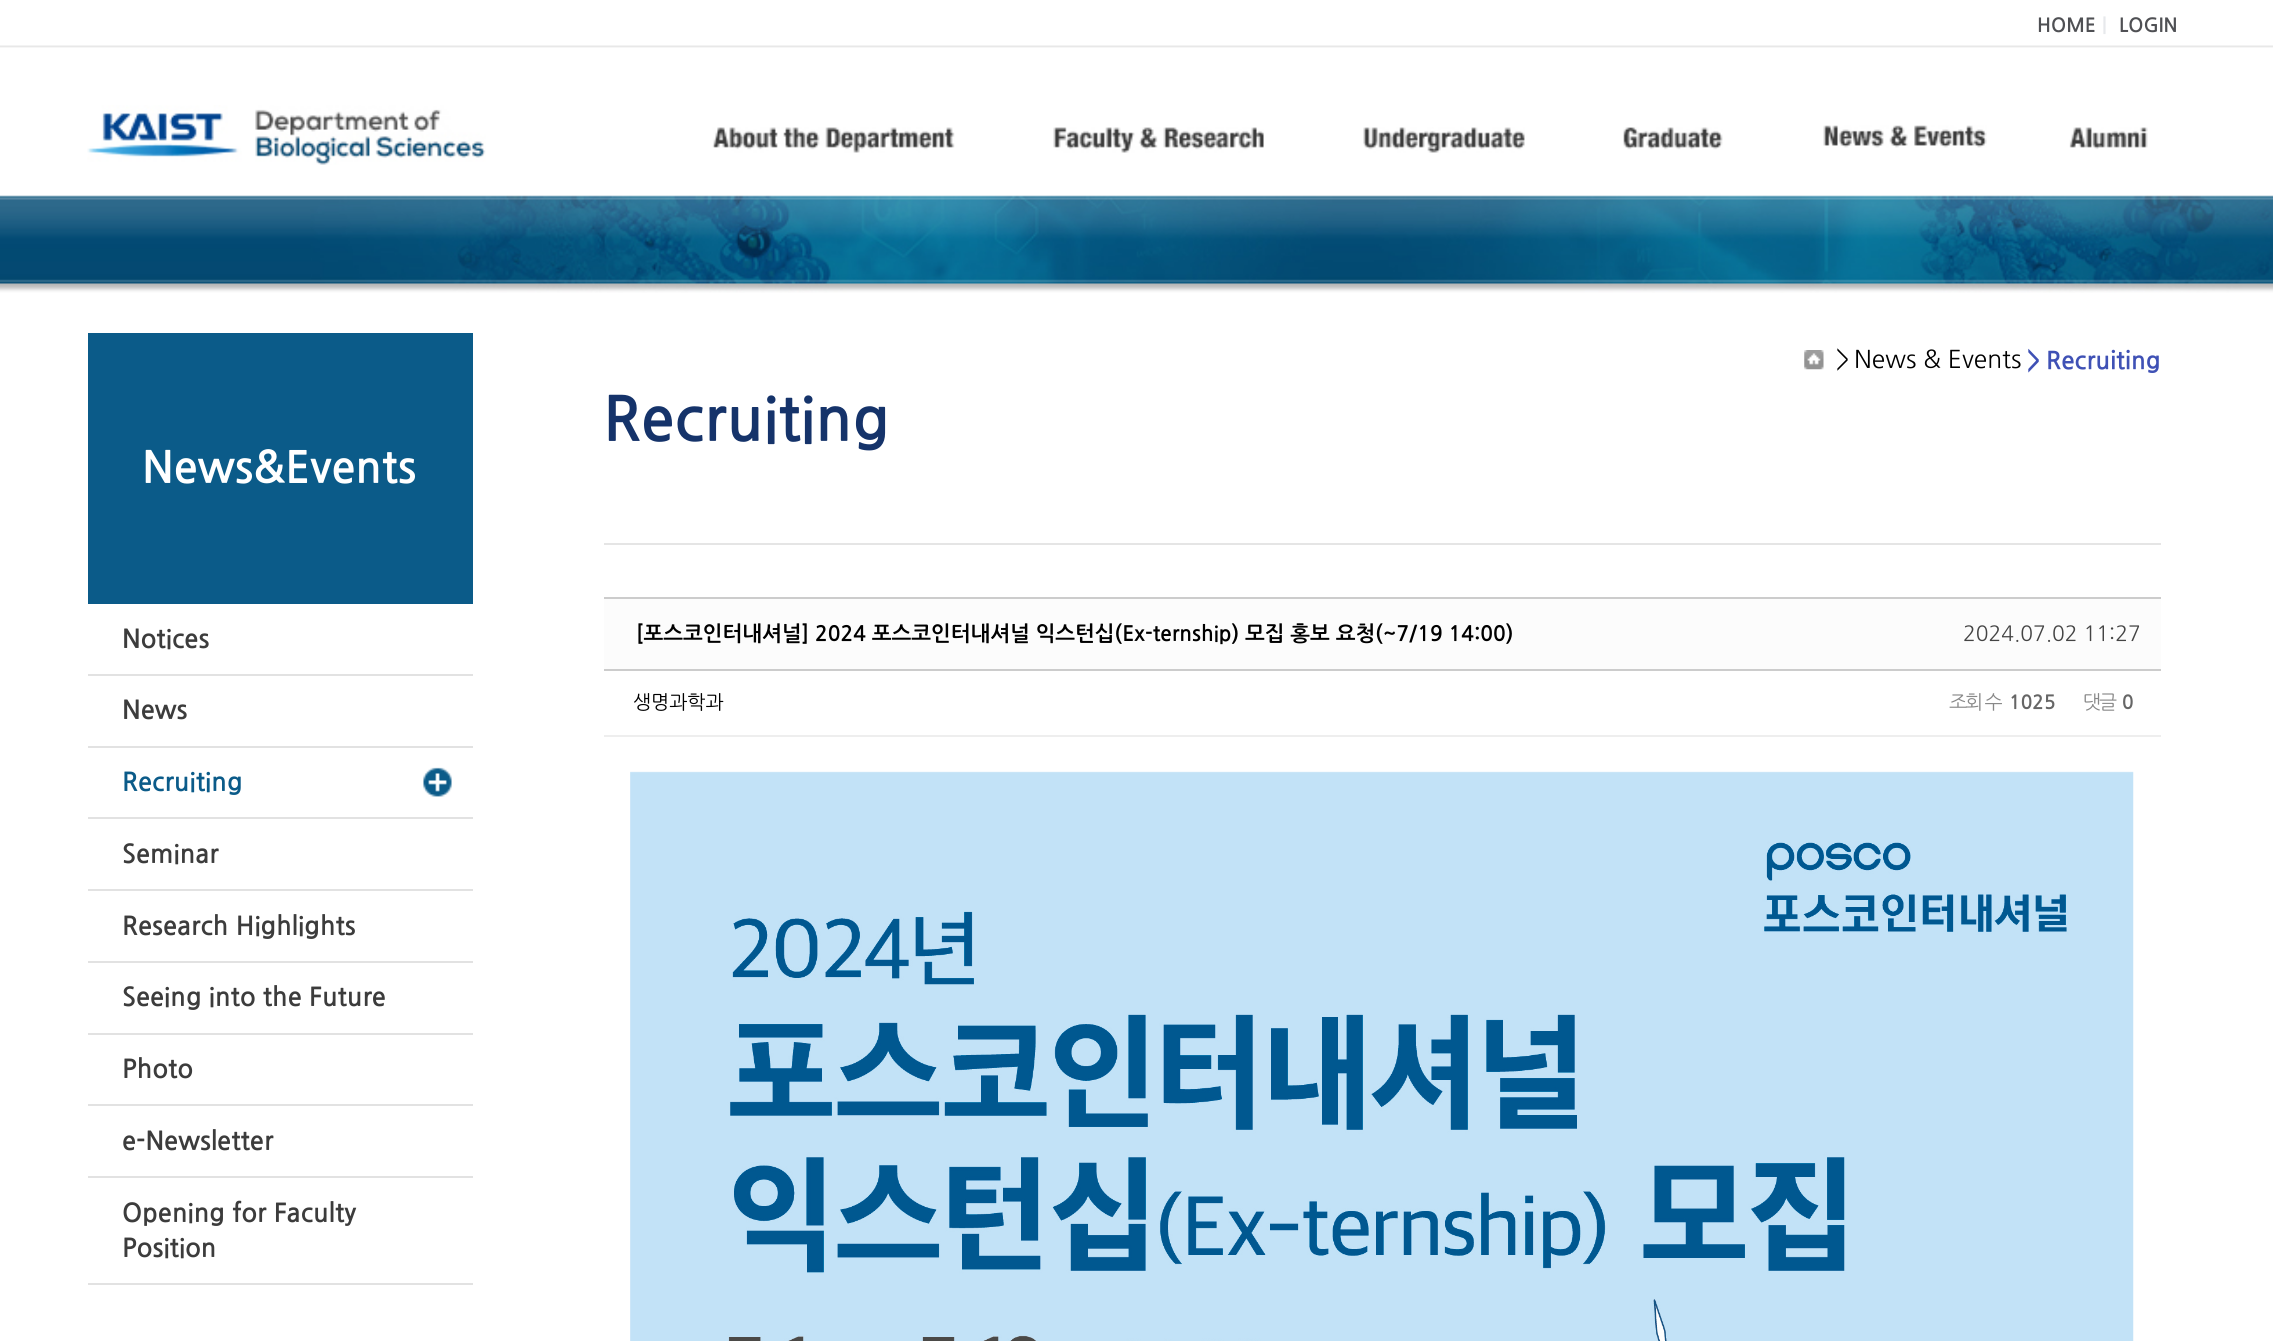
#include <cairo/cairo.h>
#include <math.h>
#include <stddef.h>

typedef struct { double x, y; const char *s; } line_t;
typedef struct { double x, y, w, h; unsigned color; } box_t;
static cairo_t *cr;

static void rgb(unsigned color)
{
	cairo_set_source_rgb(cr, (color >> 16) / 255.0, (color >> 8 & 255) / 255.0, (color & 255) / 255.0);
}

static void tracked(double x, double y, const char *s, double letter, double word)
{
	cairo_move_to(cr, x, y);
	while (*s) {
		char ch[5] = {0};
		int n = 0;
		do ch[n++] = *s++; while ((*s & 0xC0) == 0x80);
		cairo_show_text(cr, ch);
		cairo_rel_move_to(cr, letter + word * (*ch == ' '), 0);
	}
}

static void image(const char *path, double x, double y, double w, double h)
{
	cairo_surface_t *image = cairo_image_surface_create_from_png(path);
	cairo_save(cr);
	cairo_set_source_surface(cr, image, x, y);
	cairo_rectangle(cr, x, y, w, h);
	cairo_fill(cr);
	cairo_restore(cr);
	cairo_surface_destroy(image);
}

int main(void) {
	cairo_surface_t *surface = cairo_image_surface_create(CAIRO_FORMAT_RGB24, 2273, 1341);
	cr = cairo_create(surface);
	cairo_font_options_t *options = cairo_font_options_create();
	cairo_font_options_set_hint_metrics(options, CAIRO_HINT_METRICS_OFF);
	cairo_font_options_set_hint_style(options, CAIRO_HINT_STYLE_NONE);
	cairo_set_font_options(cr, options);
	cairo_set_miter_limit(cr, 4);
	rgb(0xffffff);
	cairo_paint(cr);
	image("img/1.png", 0, 45, 2273, 248);
	image("img/2.png", 87, 105, 399, 60);
	image("img/3.png", 712, 127, 243, 26);
	image("img/4.png", 1053, 127, 211, 26);
	image("img/5.png", 1363, 127, 162, 26);
	image("img/6.png", 1623, 127, 100, 23);
	image("img/7.png", 1823, 125, 164, 23);
	image("img/8.png", 2069, 127, 79, 23);
	{
		static const box_t items[] = {
			{88, 333, 385, 271, 0x0b5b89},
			{88, 674, 385, 2, 0xe2e2e2},
			{88, 746, 385, 2, 0xe2e2e2},
		};
		for (size_t i = 0; i < sizeof items / sizeof *items; i++) {
			rgb(items[i].color);
			cairo_rectangle(cr, items[i].x, items[i].y, items[i].w, items[i].h);
			cairo_fill(cr);
		}
	}
	image("img/9.png", 423, 767, 29, 30);
	{
		static const box_t items[] = {
			{88, 817, 385, 2, 0xe2e2e2},
			{88, 889, 385, 2, 0xe2e2e2},
			{88, 961, 385, 2, 0xe2e2e2},
			{88, 1033, 385, 2, 0xe2e2e2},
			{88, 1104, 385, 2, 0xe2e2e2},
			{88, 1176, 385, 2, 0xe2e2e2},
			{88, 1283, 385, 2, 0xe2e2e2},
			{604, 543, 1557, 2, 0xe5e5e5},
		};
		for (size_t i = 0; i < sizeof items / sizeof *items; i++) {
			rgb(items[i].color);
			cairo_rectangle(cr, items[i].x, items[i].y, items[i].w, items[i].h);
			cairo_fill(cr);
		}
	}
	image("img/10.png", 1804, 350, 20, 20);
	{
		static const box_t items[] = {
			{604, 599, 1557, 70, 0xfcfcfc},
			{604, 597, 1557, 2, 0xcccccc},
			{604, 669, 1557, 2, 0xcccccc},
			{604, 735, 1557, 2, 0xeeeeee},
		};
		for (size_t i = 0; i < sizeof items / sizeof *items; i++) {
			rgb(items[i].color);
			cairo_rectangle(cr, items[i].x, items[i].y, items[i].w, items[i].h);
			cairo_fill(cr);
		}
	}
	image("img/11.png", 630, 771, 1504, 570);
	cairo_select_font_face(cr, "NanumGothic", CAIRO_FONT_SLANT_NORMAL, CAIRO_FONT_WEIGHT_BOLD);
	cairo_set_font_size(cr, 19.25);
	rgb(0x4f5054);
	cairo_move_to(cr, 2037, 32);
	cairo_show_text(cr, "HOME");
	rgb(0xe7e9ec);
	cairo_move_to(cr, 2102, 32);
	cairo_show_text(cr, "|");
	rgb(0x4f5054);
	cairo_move_to(cr, 2119, 32);
	cairo_show_text(cr, "LOGIN");
	cairo_set_font_size(cr, 43.75);
	rgb(0xffffff);
	cairo_move_to(cr, 142, 483);
	cairo_show_text(cr, "News&Events");
	cairo_set_font_size(cr, 25.75);
	rgb(0x3c3c3c);
	cairo_move_to(cr, 122, 648);
	cairo_show_text(cr, "Notices");
	cairo_move_to(cr, 122, 719);
	cairo_show_text(cr, "News");
	rgb(0x0b5b89);
	cairo_move_to(cr, 122, 791);
	cairo_show_text(cr, "Recruiting");
	rgb(0x3c3c3c);
	{
		static const line_t items[] = {
			{122, 863, "Seminar"},
			{122, 935, "Research Highlights"},
			{122, 1006, "Seeing into the Future"},
			{122, 1078, "Photo"},
			{122, 1150, "e-Newsletter"},
			{122, 1222, "Opening for Faculty"},
			{122, 1257, "Position"},
		};
		for (size_t i = 0; i < sizeof items / sizeof *items; i++) {
			cairo_move_to(cr, items[i].x, items[i].y);
			cairo_show_text(cr, items[i].s);
		}
	}
	cairo_select_font_face(cr, "NanumGothic", CAIRO_FONT_SLANT_NORMAL, CAIRO_FONT_WEIGHT_NORMAL);
	cairo_set_font_size(cr, 24.5);
	rgb(0x000000);
	cairo_move_to(cr, 1836, 368);
	cairo_show_text(cr, ">");
	cairo_move_to(cr, 1854, 368);
	cairo_show_text(cr, "News & Events");
	cairo_select_font_face(cr, "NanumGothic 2", CAIRO_FONT_SLANT_NORMAL, CAIRO_FONT_WEIGHT_BOLD);
	rgb(0x3f51b5);
	cairo_move_to(cr, 2027, 368);
	cairo_show_text(cr, ">");
	cairo_move_to(cr, 2046, 368);
	cairo_show_text(cr, "Recruiting");
	cairo_select_font_face(cr, "NanumGothic", CAIRO_FONT_SLANT_NORMAL, CAIRO_FONT_WEIGHT_BOLD);
	cairo_set_font_size(cr, 61.25);
	rgb(0x15336a);
	cairo_move_to(cr, 603, 441);
	cairo_show_text(cr, "Recruiting");
	cairo_set_font_size(cr, 21);
	rgb(0x000000);
	cairo_move_to(cr, 636, 641);
	cairo_show_text(cr, "[포스코인터내셔널] 2024 포스코인터내셔널 익스턴십(Ex-ternship) 모집 홍보 요청(~7/19 14:00)");
	cairo_select_font_face(cr, "NanumGothic", CAIRO_FONT_SLANT_NORMAL, CAIRO_FONT_WEIGHT_NORMAL);
	rgb(0x444444);
	cairo_move_to(cr, 1963, 641);
	cairo_show_text(cr, "2024.07.02 11:27");
	cairo_set_font_size(cr, 19.25);
	rgb(0x000000);
	cairo_move_to(cr, 633, 709);
	cairo_show_text(cr, "생명과학과");
	rgb(0x888888);
	tracked(1949, 709, "조회 수", -2, 0);
	cairo_select_font_face(cr, "NanumGothic", CAIRO_FONT_SLANT_NORMAL, CAIRO_FONT_WEIGHT_BOLD);
	rgb(0x666666);
	cairo_move_to(cr, 2009, 709);
	cairo_show_text(cr, "1025");
	cairo_select_font_face(cr, "NanumGothic", CAIRO_FONT_SLANT_NORMAL, CAIRO_FONT_WEIGHT_NORMAL);
	rgb(0x888888);
	tracked(2083, 709, "댓글", -2, 0);
	cairo_select_font_face(cr, "NanumGothic", CAIRO_FONT_SLANT_NORMAL, CAIRO_FONT_WEIGHT_BOLD);
	rgb(0x666666);
	cairo_move_to(cr, 2122, 709);
	cairo_show_text(cr, "0");
	cairo_surface_write_to_png(surface, "page.png");
	cairo_font_options_destroy(options);
	cairo_destroy(cr);
	cairo_surface_destroy(surface);
	return 0;
}
